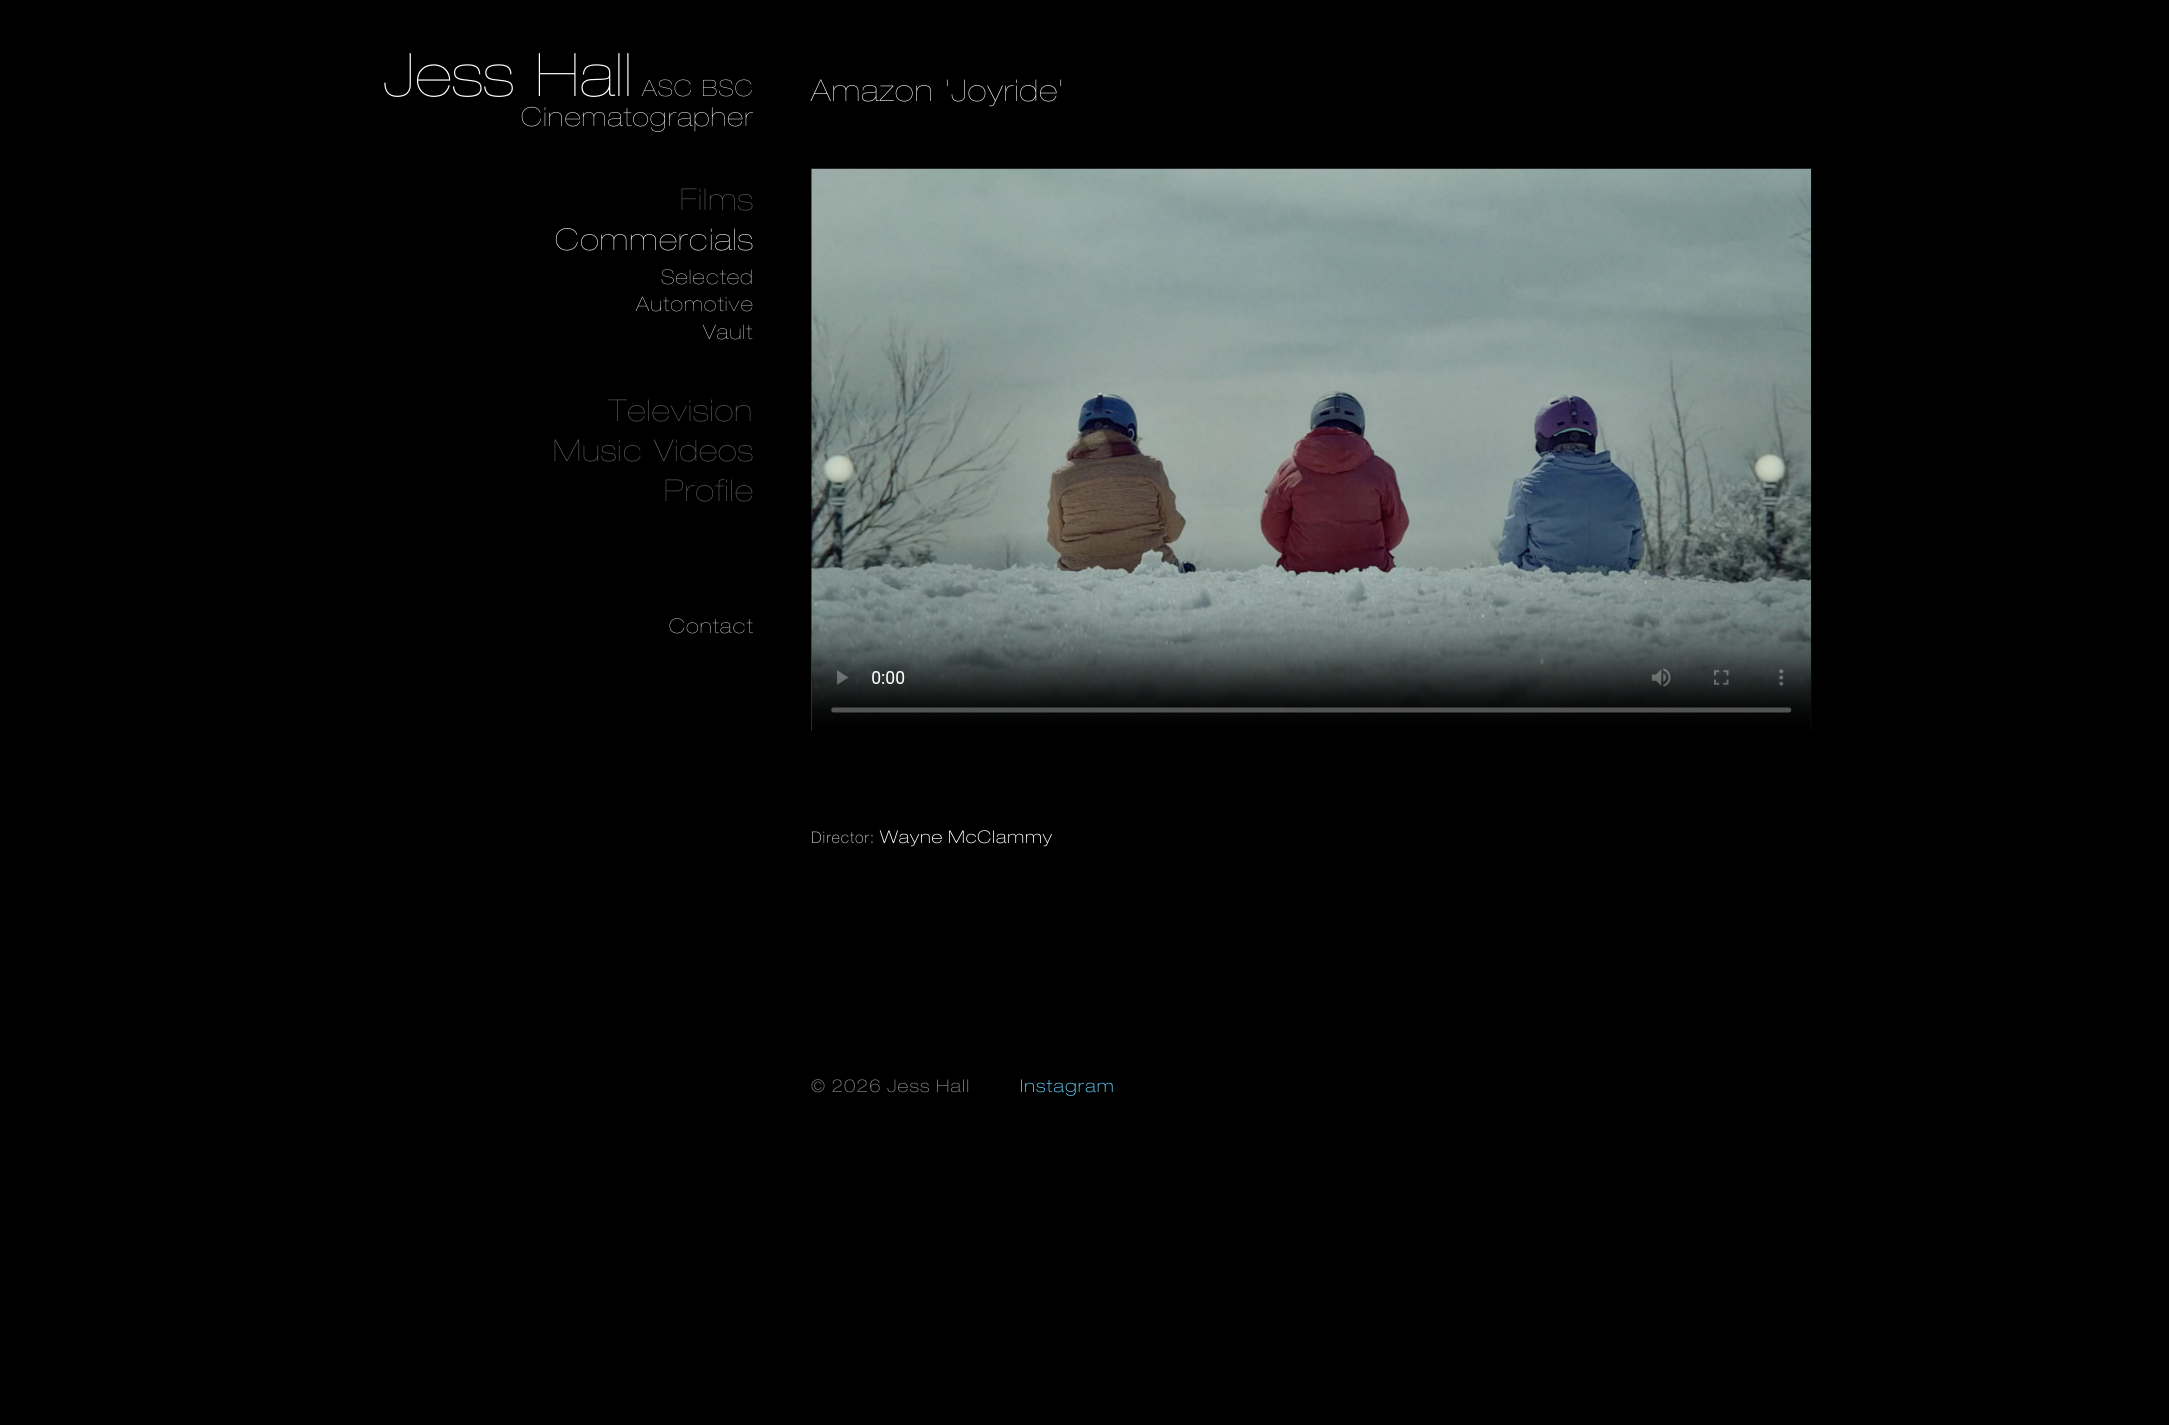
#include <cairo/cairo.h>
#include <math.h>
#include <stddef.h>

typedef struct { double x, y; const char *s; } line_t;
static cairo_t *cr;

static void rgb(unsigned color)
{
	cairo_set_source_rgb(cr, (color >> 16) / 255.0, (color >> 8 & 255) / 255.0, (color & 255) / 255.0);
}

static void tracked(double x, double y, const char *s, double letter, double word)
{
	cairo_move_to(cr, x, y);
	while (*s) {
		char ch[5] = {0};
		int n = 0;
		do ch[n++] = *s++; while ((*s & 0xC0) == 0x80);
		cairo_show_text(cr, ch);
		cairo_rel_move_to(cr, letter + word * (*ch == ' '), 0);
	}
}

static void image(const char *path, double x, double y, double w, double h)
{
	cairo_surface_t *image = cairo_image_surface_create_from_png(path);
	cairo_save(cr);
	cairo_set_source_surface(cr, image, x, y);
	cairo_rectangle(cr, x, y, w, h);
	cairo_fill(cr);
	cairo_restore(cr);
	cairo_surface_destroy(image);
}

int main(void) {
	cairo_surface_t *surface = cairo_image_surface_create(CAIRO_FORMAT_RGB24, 2169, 1425);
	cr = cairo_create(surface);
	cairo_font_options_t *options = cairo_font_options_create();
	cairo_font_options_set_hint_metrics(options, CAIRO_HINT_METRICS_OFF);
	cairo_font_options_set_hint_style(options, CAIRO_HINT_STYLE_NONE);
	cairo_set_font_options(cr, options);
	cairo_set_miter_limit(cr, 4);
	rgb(0x000000);
	cairo_paint(cr);
	image("img/1.png", 811, 168, 1001, 564);
	cairo_select_font_face(cr, "Helvetica Neue Light", CAIRO_FONT_SLANT_NORMAL, CAIRO_FONT_WEIGHT_NORMAL);
	cairo_set_font_size(cr, 60);
	rgb(0xffffff);
	tracked(383, 96, "Jess Hall", 1.25, 0);
	cairo_set_font_size(cr, 22.5);
	tracked(642, 96, "ASC BSC", 1.25, 0);
	cairo_set_font_size(cr, 26.25);
	tracked(521, 126, "Cinematographer", 1.25, 0);
	cairo_set_font_size(cr, 30);
	rgb(0x666666);
	tracked(680, 210, "Films", 1.25, 0);
	rgb(0xffffff);
	tracked(555, 250, "Commercials", 1.25, 0);
	cairo_set_font_size(cr, 20);
	{
		static const line_t items[] = {
			{661, 284, "Selected"},
			{636, 311, "Automotive"},
			{703, 339, "Vault"},
		};
		for (size_t i = 0; i < sizeof items / sizeof *items; i++) {
			tracked(items[i].x, items[i].y, items[i].s, 1.25, 0);
		}
	}
	cairo_set_font_size(cr, 30);
	rgb(0x666666);
	{
		static const line_t items[] = {
			{609, 421, "Television"},
			{553, 461, "Music Videos"},
			{664, 501, "Profile"},
		};
		for (size_t i = 0; i < sizeof items / sizeof *items; i++) {
			tracked(items[i].x, items[i].y, items[i].s, 1.25, 0);
		}
	}
	cairo_set_font_size(cr, 20);
	rgb(0xffffff);
	tracked(669, 633, "Contact", 1.25, 0);
	cairo_set_font_size(cr, 30);
	tracked(811, 101, "Amazon 'Joyride'", 1.25, 0);
	cairo_select_font_face(cr, "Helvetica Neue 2 ExtraLight", CAIRO_FONT_SLANT_NORMAL, CAIRO_FONT_WEIGHT_NORMAL);
	cairo_set_font_size(cr, 16);
	rgb(0xcccccc);
	tracked(811, 843, "Director:", 0.9, 0);
	cairo_select_font_face(cr, "Helvetica Neue ExtraLight", CAIRO_FONT_SLANT_NORMAL, CAIRO_FONT_WEIGHT_NORMAL);
	cairo_set_font_size(cr, 17.5);
	rgb(0xffffff);
	tracked(880, 843, "Wayne McClammy", 0.9, 0);
	rgb(0x808080);
	tracked(811, 1092, "© 2026 Jess Hall", 1.25, 0);
	rgb(0x67d2ff);
	tracked(1020, 1092, "Instagram", 1.25, 0);
	cairo_surface_write_to_png(surface, "page.png");
	cairo_font_options_destroy(options);
	cairo_destroy(cr);
	cairo_surface_destroy(surface);
	return 0;
}
